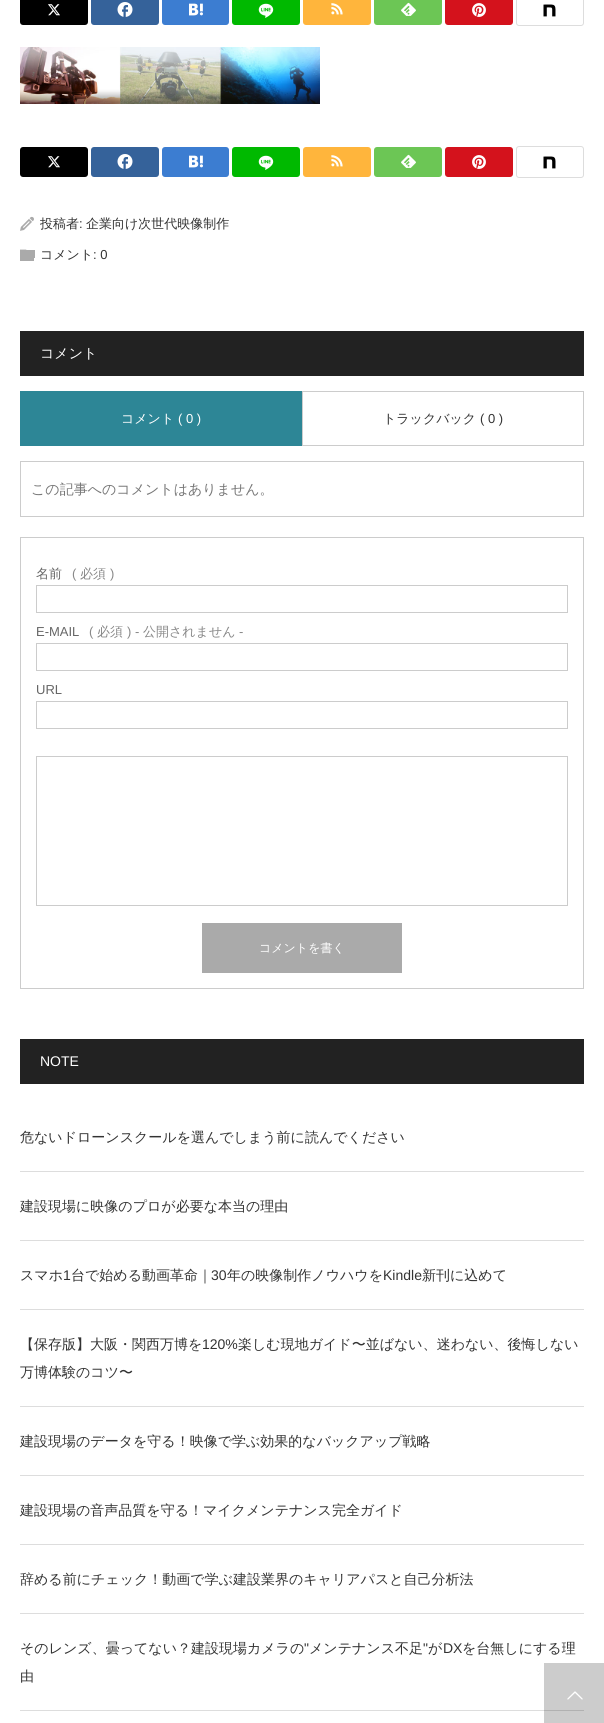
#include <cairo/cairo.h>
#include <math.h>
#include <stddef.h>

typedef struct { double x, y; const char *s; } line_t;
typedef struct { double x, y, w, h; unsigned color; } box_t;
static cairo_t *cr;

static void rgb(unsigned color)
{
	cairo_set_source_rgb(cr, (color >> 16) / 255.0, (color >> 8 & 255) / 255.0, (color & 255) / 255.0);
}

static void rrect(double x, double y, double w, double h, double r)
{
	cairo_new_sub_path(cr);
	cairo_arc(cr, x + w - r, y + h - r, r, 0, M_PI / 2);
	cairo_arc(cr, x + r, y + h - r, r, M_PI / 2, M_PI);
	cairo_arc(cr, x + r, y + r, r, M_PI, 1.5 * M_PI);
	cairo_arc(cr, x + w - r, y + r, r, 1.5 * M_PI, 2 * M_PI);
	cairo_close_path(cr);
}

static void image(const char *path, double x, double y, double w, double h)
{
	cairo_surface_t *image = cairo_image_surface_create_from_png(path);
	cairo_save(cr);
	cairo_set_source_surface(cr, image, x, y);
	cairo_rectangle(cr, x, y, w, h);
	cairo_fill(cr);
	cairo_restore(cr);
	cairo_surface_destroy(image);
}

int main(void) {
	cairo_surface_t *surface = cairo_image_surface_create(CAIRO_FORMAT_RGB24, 604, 1723);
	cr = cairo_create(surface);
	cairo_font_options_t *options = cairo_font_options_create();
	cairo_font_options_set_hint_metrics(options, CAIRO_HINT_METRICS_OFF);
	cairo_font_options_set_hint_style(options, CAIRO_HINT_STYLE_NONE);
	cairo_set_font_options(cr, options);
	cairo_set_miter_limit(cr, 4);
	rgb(0xffffff);
	cairo_paint(cr);
	rgb(0x000000);
	rrect(20, -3, 68, 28, 3);
	cairo_fill(cr);
	image("img/1.png", 48, 4, 12, 12);
	rgb(0x35629a);
	rrect(91, -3, 68, 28, 3);
	cairo_fill(cr);
	image("img/2.png", 117, 2, 16, 15);
	rgb(0x3c7dd1);
	rrect(162, -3, 67, 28, 3);
	cairo_fill(cr);
	image("img/3.png", 189, 3, 14, 13);
	rgb(0x00b900);
	rrect(232, -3, 68, 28, 3);
	cairo_fill(cr);
	image("img/4.png", 258, 3, 16, 15);
	rgb(0xffb53c);
	rrect(303, -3, 68, 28, 3);
	cairo_fill(cr);
	image("img/5.png", 331, 3, 12, 12);
	rgb(0x6cc655);
	rrect(374, -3, 68, 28, 3);
	cairo_fill(cr);
	image("img/6.png", 401, 2, 15, 14);
	rgb(0xd4121c);
	rrect(445, -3, 68, 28, 3);
	cairo_fill(cr);
	image("img/7.png", 472, 3, 14, 14);
	rrect(516.5, -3.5, 67, 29, 2.5);
	rgb(0xdddddd);
	cairo_set_line_width(cr, 1);
	cairo_stroke(cr);
	image("img/8.png", 543, 4, 13, 13);
	image("img/9.png", 20, 47, 300, 57);
	rgb(0x000000);
	rrect(20, 147, 68, 30, 3);
	cairo_fill(cr);
	image("img/1.png", 48, 156, 12, 12);
	rgb(0x35629a);
	rrect(91, 147, 68, 30, 3);
	cairo_fill(cr);
	image("img/2.png", 117, 154, 16, 15);
	rgb(0x3c7dd1);
	rrect(162, 147, 67, 30, 3);
	cairo_fill(cr);
	image("img/3.png", 189, 155, 14, 13);
	rgb(0x00b900);
	rrect(232, 147, 68, 30, 3);
	cairo_fill(cr);
	image("img/4.png", 258, 155, 16, 15);
	rgb(0xffb53c);
	rrect(303, 147, 68, 30, 3);
	cairo_fill(cr);
	image("img/5.png", 331, 155, 12, 12);
	rgb(0x6cc655);
	rrect(374, 147, 68, 30, 3);
	cairo_fill(cr);
	image("img/6.png", 401, 154, 15, 14);
	rgb(0xd4121c);
	rrect(445, 147, 68, 30, 3);
	cairo_fill(cr);
	image("img/7.png", 472, 155, 14, 14);
	rrect(516.5, 146.5, 67, 31, 2.5);
	rgb(0xdddddd);
	cairo_stroke(cr);
	image("img/8.png", 543, 156, 13, 13);
	image("img/10.png", 20, 216, 14, 15);
	image("img/11.png", 20, 249, 14, 12);
	{
		static const box_t items[] = {
			{26, 250, 9, 8, 0xaaaaaa},
			{20, 331, 564, 45, 0x222222},
			{20, 391, 282, 55, 0x2d8696},
		};
		for (size_t i = 0; i < sizeof items / sizeof *items; i++) {
			rgb(items[i].color);
			cairo_rectangle(cr, items[i].x, items[i].y, items[i].w, items[i].h);
			cairo_fill(cr);
		}
	}
	cairo_rectangle(cr, 302.5, 391.5, 281, 54);
	rgb(0xcccccc);
	cairo_stroke(cr);
	cairo_rectangle(cr, 20.5, 461.5, 563, 55);
	cairo_stroke(cr);
	cairo_rectangle(cr, 20.5, 537.5, 563, 451);
	cairo_stroke(cr);
	cairo_rectangle(cr, 36.5, 585.5, 531, 27);
	cairo_stroke(cr);
	cairo_rectangle(cr, 36.5, 643.5, 531, 27);
	cairo_stroke(cr);
	cairo_rectangle(cr, 36.5, 701.5, 531, 27);
	cairo_stroke(cr);
	cairo_rectangle(cr, 36.5, 756.5, 531, 149);
	cairo_stroke(cr);
	rgb(0xaaaaaa);
	cairo_rectangle(cr, 202, 923, 200, 50);
	cairo_fill(cr);
	rgb(0x222222);
	cairo_rectangle(cr, 20, 1039, 564, 45);
	cairo_fill(cr);
	rgb(0xdddddd);
	cairo_rectangle(cr, 20, 1171, 564, 1);
	cairo_fill(cr);
	cairo_rectangle(cr, 20, 1240, 564, 1);
	cairo_fill(cr);
	cairo_rectangle(cr, 20, 1309, 564, 1);
	cairo_fill(cr);
	cairo_rectangle(cr, 20, 1406, 564, 1);
	cairo_fill(cr);
	cairo_rectangle(cr, 20, 1475, 564, 1);
	cairo_fill(cr);
	cairo_rectangle(cr, 20, 1544, 564, 1);
	cairo_fill(cr);
	cairo_rectangle(cr, 20, 1613, 564, 1);
	cairo_fill(cr);
	cairo_rectangle(cr, 20, 1710, 564, 1);
	cairo_fill(cr);
	cairo_set_source_rgba(cr, 0, 0, 0, 0.2);
	cairo_rectangle(cr, 544, 1663, 60, 60);
	cairo_fill(cr);
	image("img/12.png", 567, 1691, 16, 9);
	cairo_select_font_face(cr, "WenQuanYi Zen Hei Medium", CAIRO_FONT_SLANT_NORMAL, CAIRO_FONT_WEIGHT_NORMAL);
	cairo_set_font_size(cr, 13);
	rgb(0x333333);
	cairo_move_to(cr, 40, 228);
	cairo_show_text(cr, "投稿者");
	cairo_select_font_face(cr, "Liberation Sans", CAIRO_FONT_SLANT_NORMAL, CAIRO_FONT_WEIGHT_NORMAL);
	cairo_move_to(cr, 79, 228);
	cairo_show_text(cr, ":");
	cairo_select_font_face(cr, "WenQuanYi Zen Hei Medium", CAIRO_FONT_SLANT_NORMAL, CAIRO_FONT_WEIGHT_NORMAL);
	cairo_move_to(cr, 86, 228);
	cairo_show_text(cr, "企業向け次世代映像制作");
	cairo_move_to(cr, 40, 259);
	cairo_show_text(cr, "コメント");
	cairo_select_font_face(cr, "Liberation Sans", CAIRO_FONT_SLANT_NORMAL, CAIRO_FONT_WEIGHT_NORMAL);
	cairo_move_to(cr, 93, 259);
	cairo_show_text(cr, ": 0");
	cairo_select_font_face(cr, "WenQuanYi Zen Hei Medium", CAIRO_FONT_SLANT_NORMAL, CAIRO_FONT_WEIGHT_NORMAL);
	cairo_set_font_size(cr, 14);
	rgb(0xffffff);
	cairo_move_to(cr, 40, 358);
	cairo_show_text(cr, "コメント");
	cairo_set_font_size(cr, 13);
	cairo_move_to(cr, 121, 423);
	cairo_show_text(cr, "コメント");
	cairo_select_font_face(cr, "Liberation Sans", CAIRO_FONT_SLANT_NORMAL, CAIRO_FONT_WEIGHT_NORMAL);
	cairo_move_to(cr, 178, 423);
	cairo_show_text(cr, "( 0 )");
	cairo_select_font_face(cr, "WenQuanYi Zen Hei Medium", CAIRO_FONT_SLANT_NORMAL, CAIRO_FONT_WEIGHT_NORMAL);
	rgb(0x333333);
	cairo_move_to(cr, 383, 423);
	cairo_show_text(cr, "トラックバック");
	cairo_select_font_face(cr, "Liberation Sans", CAIRO_FONT_SLANT_NORMAL, CAIRO_FONT_WEIGHT_NORMAL);
	cairo_move_to(cr, 480, 423);
	cairo_show_text(cr, "( 0 )");
	cairo_select_font_face(cr, "WenQuanYi Zen Hei Medium", CAIRO_FONT_SLANT_NORMAL, CAIRO_FONT_WEIGHT_NORMAL);
	cairo_set_font_size(cr, 14);
	rgb(0x777777);
	cairo_move_to(cr, 31, 494);
	cairo_show_text(cr, "この記事へのコメントはありません。");
	cairo_set_font_size(cr, 13);
	rgb(0x666666);
	cairo_move_to(cr, 36, 578);
	cairo_show_text(cr, "名前");
	cairo_select_font_face(cr, "Liberation Sans", CAIRO_FONT_SLANT_NORMAL, CAIRO_FONT_WEIGHT_NORMAL);
	rgb(0x888888);
	cairo_move_to(cr, 72, 578);
	cairo_show_text(cr, "(");
	cairo_select_font_face(cr, "WenQuanYi Zen Hei Medium", CAIRO_FONT_SLANT_NORMAL, CAIRO_FONT_WEIGHT_NORMAL);
	cairo_move_to(cr, 80, 578);
	cairo_show_text(cr, "必須");
	cairo_select_font_face(cr, "Liberation Sans", CAIRO_FONT_SLANT_NORMAL, CAIRO_FONT_WEIGHT_NORMAL);
	cairo_move_to(cr, 110, 578);
	cairo_show_text(cr, ")");
	rgb(0x666666);
	cairo_move_to(cr, 36, 636);
	cairo_show_text(cr, "E-MAIL");
	rgb(0x888888);
	cairo_move_to(cr, 89, 636);
	cairo_show_text(cr, "(");
	cairo_select_font_face(cr, "WenQuanYi Zen Hei Medium", CAIRO_FONT_SLANT_NORMAL, CAIRO_FONT_WEIGHT_NORMAL);
	cairo_move_to(cr, 97, 636);
	cairo_show_text(cr, "必須");
	cairo_select_font_face(cr, "Liberation Sans", CAIRO_FONT_SLANT_NORMAL, CAIRO_FONT_WEIGHT_NORMAL);
	cairo_move_to(cr, 127, 636);
	cairo_show_text(cr, ") -");
	cairo_select_font_face(cr, "WenQuanYi Zen Hei Medium", CAIRO_FONT_SLANT_NORMAL, CAIRO_FONT_WEIGHT_NORMAL);
	cairo_move_to(cr, 143, 636);
	cairo_show_text(cr, "公開されません");
	cairo_select_font_face(cr, "Liberation Sans", CAIRO_FONT_SLANT_NORMAL, CAIRO_FONT_WEIGHT_NORMAL);
	cairo_move_to(cr, 239, 636);
	cairo_show_text(cr, "-");
	rgb(0x666666);
	cairo_move_to(cr, 36, 694);
	cairo_show_text(cr, "URL");
	cairo_select_font_face(cr, "WenQuanYi Zen Hei Medium", CAIRO_FONT_SLANT_NORMAL, CAIRO_FONT_WEIGHT_NORMAL);
	cairo_set_font_size(cr, 12);
	rgb(0xffffff);
	cairo_move_to(cr, 259, 952);
	cairo_show_text(cr, "コメントを書く");
	cairo_select_font_face(cr, "Liberation Sans", CAIRO_FONT_SLANT_NORMAL, CAIRO_FONT_WEIGHT_NORMAL);
	cairo_set_font_size(cr, 14);
	cairo_move_to(cr, 40, 1066);
	cairo_show_text(cr, "NOTE");
	cairo_select_font_face(cr, "WenQuanYi Zen Hei Medium", CAIRO_FONT_SLANT_NORMAL, CAIRO_FONT_WEIGHT_NORMAL);
	rgb(0x333333);
	{
		static const line_t items[] = {
			{20, 1142, "危ないドローンスクールを選んでしまう前に読んでください"},
			{20, 1211, "建設現場に映像のプロが必要な本当の理由"},
			{20, 1280, "スマホ"},
		};
		for (size_t i = 0; i < sizeof items / sizeof *items; i++) {
			cairo_move_to(cr, items[i].x, items[i].y);
			cairo_show_text(cr, items[i].s);
		}
	}
	cairo_select_font_face(cr, "Liberation Sans", CAIRO_FONT_SLANT_NORMAL, CAIRO_FONT_WEIGHT_NORMAL);
	cairo_move_to(cr, 63, 1280);
	cairo_show_text(cr, "1");
	cairo_select_font_face(cr, "WenQuanYi Zen Hei Medium", CAIRO_FONT_SLANT_NORMAL, CAIRO_FONT_WEIGHT_NORMAL);
	cairo_move_to(cr, 71, 1280);
	cairo_show_text(cr, "台で始める動画革命｜");
	cairo_select_font_face(cr, "Liberation Sans", CAIRO_FONT_SLANT_NORMAL, CAIRO_FONT_WEIGHT_NORMAL);
	cairo_move_to(cr, 211, 1280);
	cairo_show_text(cr, "30");
	cairo_select_font_face(cr, "WenQuanYi Zen Hei Medium", CAIRO_FONT_SLANT_NORMAL, CAIRO_FONT_WEIGHT_NORMAL);
	cairo_move_to(cr, 227, 1280);
	cairo_show_text(cr, "年の映像制作ノウハウを");
	cairo_select_font_face(cr, "Liberation Sans", CAIRO_FONT_SLANT_NORMAL, CAIRO_FONT_WEIGHT_NORMAL);
	cairo_move_to(cr, 383, 1280);
	cairo_show_text(cr, "Kindle");
	cairo_select_font_face(cr, "WenQuanYi Zen Hei Medium", CAIRO_FONT_SLANT_NORMAL, CAIRO_FONT_WEIGHT_NORMAL);
	cairo_move_to(cr, 422, 1280);
	cairo_show_text(cr, "新刊に込めて");
	cairo_move_to(cr, 20, 1349);
	cairo_show_text(cr, "【保存版】大阪・関西万博を");
	cairo_select_font_face(cr, "Liberation Sans", CAIRO_FONT_SLANT_NORMAL, CAIRO_FONT_WEIGHT_NORMAL);
	cairo_move_to(cr, 202, 1349);
	cairo_show_text(cr, "120%");
	cairo_select_font_face(cr, "WenQuanYi Zen Hei Medium", CAIRO_FONT_SLANT_NORMAL, CAIRO_FONT_WEIGHT_NORMAL);
	{
		static const line_t items[] = {
			{238, 1349, "楽しむ現地ガイド〜並ばない、迷わない、後悔しない"},
			{20, 1377, "万博体験のコツ〜"},
			{20, 1446, "建設現場のデータを守る！映像で学ぶ効果的なバックアップ戦略"},
			{20, 1515, "建設現場の音声品質を守る！マイクメンテナンス完全ガイド"},
			{20, 1584, "辞める前にチェック！動画で学ぶ建設業界のキャリアパスと自己分析法"},
			{20, 1653, "そのレンズ、曇ってない？建設現場カメラの"},
		};
		for (size_t i = 0; i < sizeof items / sizeof *items; i++) {
			cairo_move_to(cr, items[i].x, items[i].y);
			cairo_show_text(cr, items[i].s);
		}
	}
	cairo_select_font_face(cr, "Liberation Sans", CAIRO_FONT_SLANT_NORMAL, CAIRO_FONT_WEIGHT_NORMAL);
	cairo_move_to(cr, 304, 1653);
	cairo_show_text(cr, "\"");
	cairo_select_font_face(cr, "WenQuanYi Zen Hei Medium", CAIRO_FONT_SLANT_NORMAL, CAIRO_FONT_WEIGHT_NORMAL);
	cairo_move_to(cr, 309, 1653);
	cairo_show_text(cr, "メンテナンス不足");
	cairo_select_font_face(cr, "Liberation Sans", CAIRO_FONT_SLANT_NORMAL, CAIRO_FONT_WEIGHT_NORMAL);
	cairo_move_to(cr, 423, 1653);
	cairo_show_text(cr, "\"");
	cairo_select_font_face(cr, "WenQuanYi Zen Hei Medium", CAIRO_FONT_SLANT_NORMAL, CAIRO_FONT_WEIGHT_NORMAL);
	cairo_move_to(cr, 428, 1653);
	cairo_show_text(cr, "が");
	cairo_select_font_face(cr, "Liberation Sans", CAIRO_FONT_SLANT_NORMAL, CAIRO_FONT_WEIGHT_NORMAL);
	cairo_move_to(cr, 443, 1653);
	cairo_show_text(cr, "DX");
	cairo_select_font_face(cr, "WenQuanYi Zen Hei Medium", CAIRO_FONT_SLANT_NORMAL, CAIRO_FONT_WEIGHT_NORMAL);
	cairo_move_to(cr, 462, 1653);
	cairo_show_text(cr, "を台無しにする理");
	cairo_move_to(cr, 20, 1681);
	cairo_show_text(cr, "由");
	cairo_surface_write_to_png(surface, "page.png");
	cairo_font_options_destroy(options);
	cairo_destroy(cr);
	cairo_surface_destroy(surface);
	return 0;
}
